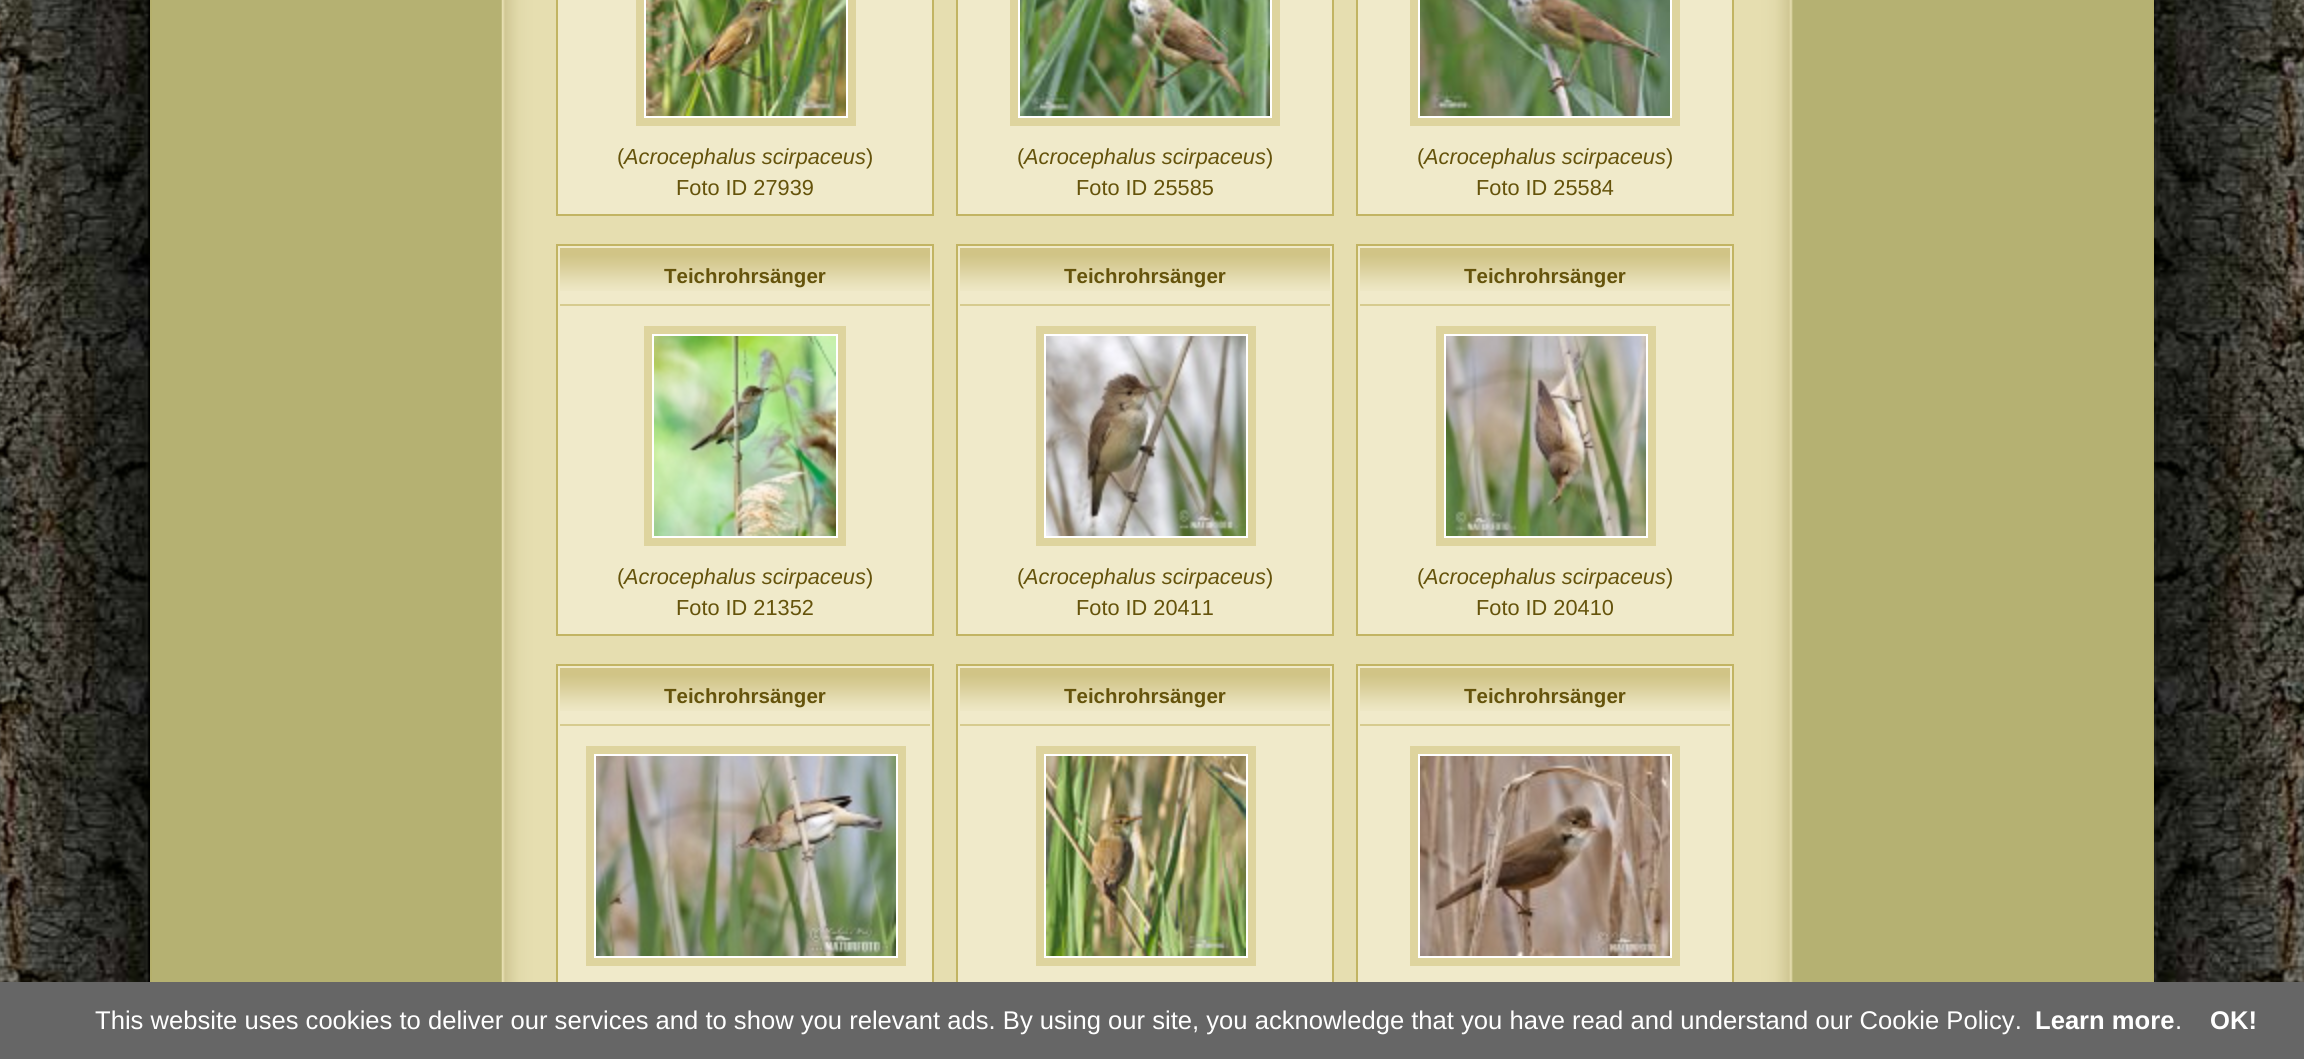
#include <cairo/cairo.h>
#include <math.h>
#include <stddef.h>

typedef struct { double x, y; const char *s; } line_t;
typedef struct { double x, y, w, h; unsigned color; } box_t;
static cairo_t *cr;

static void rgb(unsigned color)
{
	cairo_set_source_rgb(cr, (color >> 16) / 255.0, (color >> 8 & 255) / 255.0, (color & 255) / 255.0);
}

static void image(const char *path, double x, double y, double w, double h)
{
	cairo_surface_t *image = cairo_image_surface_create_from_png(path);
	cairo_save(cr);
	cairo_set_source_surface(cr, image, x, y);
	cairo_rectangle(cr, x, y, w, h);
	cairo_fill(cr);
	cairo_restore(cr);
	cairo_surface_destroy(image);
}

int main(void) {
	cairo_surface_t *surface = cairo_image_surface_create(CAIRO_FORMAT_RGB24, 2304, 1059);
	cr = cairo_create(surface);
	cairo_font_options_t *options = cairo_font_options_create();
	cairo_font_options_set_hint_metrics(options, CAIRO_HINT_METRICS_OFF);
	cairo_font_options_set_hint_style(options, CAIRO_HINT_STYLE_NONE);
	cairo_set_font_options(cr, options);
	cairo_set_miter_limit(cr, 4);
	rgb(0xffffff);
	cairo_paint(cr);
	image("img/1.png", 0, 0, 2304, 982);
	image("img/2.png", 152, 0, 350, 982);
	{
		static const box_t items[] = {
			{2152, 0, 2, 982, 0xb5b06c},
			{150, 0, 2, 982, 0xb5b06c},
			{502, 0, 1, 982, 0xe6deb0},
		};
		for (size_t i = 0; i < sizeof items / sizeof *items; i++) {
			rgb(items[i].color);
			cairo_rectangle(cr, items[i].x, items[i].y, items[i].w, items[i].h);
			cairo_fill(cr);
		}
	}
	image("img/3.png", 503, 0, 1649, 982);
	rgb(0xf0eaca);
	cairo_rectangle(cr, 557, -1, 376, 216);
	cairo_fill_preserve(cr);
	rgb(0xc2b463);
	cairo_stroke(cr);
	rgb(0xffffff);
	cairo_rectangle(cr, 640, -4, 212, 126);
	cairo_fill_preserve(cr);
	rgb(0xded49e);
	cairo_set_line_width(cr, 8);
	cairo_stroke(cr);
	image("img/4.png", 646, 0, 200, 116);
	rgb(0xf0eaca);
	cairo_rectangle(cr, 957, -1, 376, 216);
	cairo_fill_preserve(cr);
	rgb(0xc2b463);
	cairo_set_line_width(cr, 2);
	cairo_stroke(cr);
	rgb(0xffffff);
	cairo_rectangle(cr, 1014, -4, 262, 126);
	cairo_fill_preserve(cr);
	rgb(0xded49e);
	cairo_set_line_width(cr, 8);
	cairo_stroke(cr);
	image("img/5.png", 1020, 0, 250, 116);
	rgb(0xf0eaca);
	cairo_rectangle(cr, 1357, -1, 376, 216);
	cairo_fill_preserve(cr);
	rgb(0xc2b463);
	cairo_set_line_width(cr, 2);
	cairo_stroke(cr);
	rgb(0xffffff);
	cairo_rectangle(cr, 1414, -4, 262, 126);
	cairo_fill_preserve(cr);
	rgb(0xded49e);
	cairo_set_line_width(cr, 8);
	cairo_stroke(cr);
	image("img/6.png", 1420, 0, 250, 116);
	rgb(0xf0eaca);
	cairo_rectangle(cr, 557, 245, 376, 390);
	cairo_fill_preserve(cr);
	rgb(0xc2b463);
	cairo_set_line_width(cr, 2);
	cairo_stroke(cr);
	image("img/7.png", 560, 248, 370, 43);
	rgb(0xd6cb8f);
	cairo_rectangle(cr, 560, 304, 370, 2);
	cairo_fill(cr);
	rgb(0xffffff);
	cairo_rectangle(cr, 648, 330, 194, 212);
	cairo_fill_preserve(cr);
	rgb(0xded49e);
	cairo_set_line_width(cr, 8);
	cairo_stroke(cr);
	image("img/8.png", 654, 336, 182, 200);
	rgb(0xf0eaca);
	cairo_rectangle(cr, 957, 245, 376, 390);
	cairo_fill_preserve(cr);
	rgb(0xc2b463);
	cairo_set_line_width(cr, 2);
	cairo_stroke(cr);
	image("img/7.png", 960, 248, 370, 43);
	rgb(0xd6cb8f);
	cairo_rectangle(cr, 960, 304, 370, 2);
	cairo_fill(cr);
	rgb(0xffffff);
	cairo_rectangle(cr, 1040, 330, 212, 212);
	cairo_fill_preserve(cr);
	rgb(0xded49e);
	cairo_set_line_width(cr, 8);
	cairo_stroke(cr);
	image("img/9.png", 1046, 336, 200, 200);
	rgb(0xf0eaca);
	cairo_rectangle(cr, 1357, 245, 376, 390);
	cairo_fill_preserve(cr);
	rgb(0xc2b463);
	cairo_set_line_width(cr, 2);
	cairo_stroke(cr);
	image("img/7.png", 1360, 248, 370, 43);
	rgb(0xd6cb8f);
	cairo_rectangle(cr, 1360, 304, 370, 2);
	cairo_fill(cr);
	rgb(0xffffff);
	cairo_rectangle(cr, 1440, 330, 212, 212);
	cairo_fill_preserve(cr);
	rgb(0xded49e);
	cairo_set_line_width(cr, 8);
	cairo_stroke(cr);
	image("img/10.png", 1446, 336, 200, 200);
	rgb(0xf0eaca);
	cairo_rectangle(cr, 558, 666, 374, 316);
	cairo_fill(cr);
	cairo_rectangle(cr, 557, 665, 376, 390);
	rgb(0xc2b463);
	cairo_set_line_width(cr, 2);
	cairo_stroke(cr);
	image("img/7.png", 560, 668, 370, 43);
	rgb(0xd6cb8f);
	cairo_rectangle(cr, 560, 724, 370, 2);
	cairo_fill(cr);
	rgb(0xffffff);
	cairo_rectangle(cr, 590, 750, 312, 212);
	cairo_fill_preserve(cr);
	rgb(0xded49e);
	cairo_set_line_width(cr, 8);
	cairo_stroke(cr);
	image("img/11.png", 596, 756, 300, 200);
	rgb(0xf0eaca);
	cairo_rectangle(cr, 958, 666, 374, 316);
	cairo_fill(cr);
	cairo_rectangle(cr, 957, 665, 376, 390);
	rgb(0xc2b463);
	cairo_set_line_width(cr, 2);
	cairo_stroke(cr);
	image("img/7.png", 960, 668, 370, 43);
	rgb(0xd6cb8f);
	cairo_rectangle(cr, 960, 724, 370, 2);
	cairo_fill(cr);
	rgb(0xffffff);
	cairo_rectangle(cr, 1040, 750, 212, 212);
	cairo_fill_preserve(cr);
	rgb(0xded49e);
	cairo_set_line_width(cr, 8);
	cairo_stroke(cr);
	image("img/12.png", 1046, 756, 200, 200);
	rgb(0xf0eaca);
	cairo_rectangle(cr, 1358, 666, 374, 316);
	cairo_fill(cr);
	cairo_rectangle(cr, 1357, 665, 376, 390);
	rgb(0xc2b463);
	cairo_set_line_width(cr, 2);
	cairo_stroke(cr);
	image("img/7.png", 1360, 668, 370, 43);
	rgb(0xd6cb8f);
	cairo_rectangle(cr, 1360, 724, 370, 2);
	cairo_fill(cr);
	rgb(0xffffff);
	cairo_rectangle(cr, 1414, 750, 262, 212);
	cairo_fill_preserve(cr);
	rgb(0xded49e);
	cairo_set_line_width(cr, 8);
	cairo_stroke(cr);
	image("img/13.png", 1420, 756, 250, 200);
	rgb(0x666666);
	cairo_rectangle(cr, 0, 982, 2304, 77);
	cairo_fill(cr);
	cairo_select_font_face(cr, "Liberation Sans", CAIRO_FONT_SLANT_NORMAL, CAIRO_FONT_WEIGHT_NORMAL);
	cairo_set_font_size(cr, 21.75);
	rgb(0x65530b);
	cairo_move_to(cr, 617, 164);
	cairo_show_text(cr, "(");
	cairo_select_font_face(cr, "Liberation Sans", CAIRO_FONT_SLANT_ITALIC, CAIRO_FONT_WEIGHT_NORMAL);
	cairo_move_to(cr, 624, 164);
	cairo_show_text(cr, "Acrocephalus scirpaceus");
	cairo_select_font_face(cr, "Liberation Sans", CAIRO_FONT_SLANT_NORMAL, CAIRO_FONT_WEIGHT_NORMAL);
	{
		static const line_t items[] = {
			{866, 164, ")"},
			{676, 195, "Foto ID 27939"},
			{1017, 164, "("},
		};
		for (size_t i = 0; i < sizeof items / sizeof *items; i++) {
			cairo_move_to(cr, items[i].x, items[i].y);
			cairo_show_text(cr, items[i].s);
		}
	}
	cairo_select_font_face(cr, "Liberation Sans", CAIRO_FONT_SLANT_ITALIC, CAIRO_FONT_WEIGHT_NORMAL);
	cairo_move_to(cr, 1024, 164);
	cairo_show_text(cr, "Acrocephalus scirpaceus");
	cairo_select_font_face(cr, "Liberation Sans", CAIRO_FONT_SLANT_NORMAL, CAIRO_FONT_WEIGHT_NORMAL);
	{
		static const line_t items[] = {
			{1266, 164, ")"},
			{1076, 195, "Foto ID 25585"},
			{1417, 164, "("},
		};
		for (size_t i = 0; i < sizeof items / sizeof *items; i++) {
			cairo_move_to(cr, items[i].x, items[i].y);
			cairo_show_text(cr, items[i].s);
		}
	}
	cairo_select_font_face(cr, "Liberation Sans", CAIRO_FONT_SLANT_ITALIC, CAIRO_FONT_WEIGHT_NORMAL);
	cairo_move_to(cr, 1424, 164);
	cairo_show_text(cr, "Acrocephalus scirpaceus");
	cairo_select_font_face(cr, "Liberation Sans", CAIRO_FONT_SLANT_NORMAL, CAIRO_FONT_WEIGHT_NORMAL);
	cairo_move_to(cr, 1666, 164);
	cairo_show_text(cr, ")");
	cairo_move_to(cr, 1476, 195);
	cairo_show_text(cr, "Foto ID 25584");
	cairo_select_font_face(cr, "Liberation Sans", CAIRO_FONT_SLANT_NORMAL, CAIRO_FONT_WEIGHT_BOLD);
	cairo_set_font_size(cr, 20.5);
	cairo_move_to(cr, 664, 283);
	cairo_show_text(cr, "Teichrohrsänger");
	cairo_select_font_face(cr, "Liberation Sans", CAIRO_FONT_SLANT_NORMAL, CAIRO_FONT_WEIGHT_NORMAL);
	cairo_set_font_size(cr, 21.75);
	cairo_move_to(cr, 617, 584);
	cairo_show_text(cr, "(");
	cairo_select_font_face(cr, "Liberation Sans", CAIRO_FONT_SLANT_ITALIC, CAIRO_FONT_WEIGHT_NORMAL);
	cairo_move_to(cr, 624, 584);
	cairo_show_text(cr, "Acrocephalus scirpaceus");
	cairo_select_font_face(cr, "Liberation Sans", CAIRO_FONT_SLANT_NORMAL, CAIRO_FONT_WEIGHT_NORMAL);
	cairo_move_to(cr, 866, 584);
	cairo_show_text(cr, ")");
	cairo_move_to(cr, 676, 615);
	cairo_show_text(cr, "Foto ID 21352");
	cairo_select_font_face(cr, "Liberation Sans", CAIRO_FONT_SLANT_NORMAL, CAIRO_FONT_WEIGHT_BOLD);
	cairo_set_font_size(cr, 20.5);
	cairo_move_to(cr, 1064, 283);
	cairo_show_text(cr, "Teichrohrsänger");
	cairo_select_font_face(cr, "Liberation Sans", CAIRO_FONT_SLANT_NORMAL, CAIRO_FONT_WEIGHT_NORMAL);
	cairo_set_font_size(cr, 21.75);
	cairo_move_to(cr, 1017, 584);
	cairo_show_text(cr, "(");
	cairo_select_font_face(cr, "Liberation Sans", CAIRO_FONT_SLANT_ITALIC, CAIRO_FONT_WEIGHT_NORMAL);
	cairo_move_to(cr, 1024, 584);
	cairo_show_text(cr, "Acrocephalus scirpaceus");
	cairo_select_font_face(cr, "Liberation Sans", CAIRO_FONT_SLANT_NORMAL, CAIRO_FONT_WEIGHT_NORMAL);
	cairo_move_to(cr, 1266, 584);
	cairo_show_text(cr, ")");
	cairo_move_to(cr, 1076, 615);
	cairo_show_text(cr, "Foto ID 20411");
	cairo_select_font_face(cr, "Liberation Sans", CAIRO_FONT_SLANT_NORMAL, CAIRO_FONT_WEIGHT_BOLD);
	cairo_set_font_size(cr, 20.5);
	cairo_move_to(cr, 1464, 283);
	cairo_show_text(cr, "Teichrohrsänger");
	cairo_select_font_face(cr, "Liberation Sans", CAIRO_FONT_SLANT_NORMAL, CAIRO_FONT_WEIGHT_NORMAL);
	cairo_set_font_size(cr, 21.75);
	cairo_move_to(cr, 1417, 584);
	cairo_show_text(cr, "(");
	cairo_select_font_face(cr, "Liberation Sans", CAIRO_FONT_SLANT_ITALIC, CAIRO_FONT_WEIGHT_NORMAL);
	cairo_move_to(cr, 1424, 584);
	cairo_show_text(cr, "Acrocephalus scirpaceus");
	cairo_select_font_face(cr, "Liberation Sans", CAIRO_FONT_SLANT_NORMAL, CAIRO_FONT_WEIGHT_NORMAL);
	cairo_move_to(cr, 1666, 584);
	cairo_show_text(cr, ")");
	cairo_move_to(cr, 1476, 615);
	cairo_show_text(cr, "Foto ID 20410");
	cairo_select_font_face(cr, "Liberation Sans", CAIRO_FONT_SLANT_NORMAL, CAIRO_FONT_WEIGHT_BOLD);
	cairo_set_font_size(cr, 20.5);
	{
		static const line_t items[] = {
			{664, 703, "Teichrohrsänger"},
			{1064, 703, "Teichrohrsänger"},
			{1464, 703, "Teichrohrsänger"},
		};
		for (size_t i = 0; i < sizeof items / sizeof *items; i++) {
			cairo_move_to(cr, items[i].x, items[i].y);
			cairo_show_text(cr, items[i].s);
		}
	}
	cairo_select_font_face(cr, "Liberation Sans", CAIRO_FONT_SLANT_NORMAL, CAIRO_FONT_WEIGHT_NORMAL);
	cairo_set_font_size(cr, 25.6);
	rgb(0xffffff);
	cairo_move_to(cr, 95, 1029);
	cairo_show_text(cr, "This website uses cookies to deliver our services and to show you relevant ads. By using our site, you acknowledge that you have read and understand our Cookie Policy.");
	cairo_select_font_face(cr, "Liberation Sans", CAIRO_FONT_SLANT_NORMAL, CAIRO_FONT_WEIGHT_BOLD);
	cairo_move_to(cr, 2035, 1029);
	cairo_show_text(cr, "Learn more");
	cairo_select_font_face(cr, "Liberation Sans", CAIRO_FONT_SLANT_NORMAL, CAIRO_FONT_WEIGHT_NORMAL);
	cairo_move_to(cr, 2175, 1029);
	cairo_show_text(cr, ".");
	cairo_select_font_face(cr, "Liberation Sans", CAIRO_FONT_SLANT_NORMAL, CAIRO_FONT_WEIGHT_BOLD);
	cairo_move_to(cr, 2210, 1029);
	cairo_show_text(cr, "OK!");
	cairo_surface_write_to_png(surface, "page.png");
	cairo_font_options_destroy(options);
	cairo_destroy(cr);
	cairo_surface_destroy(surface);
	return 0;
}
